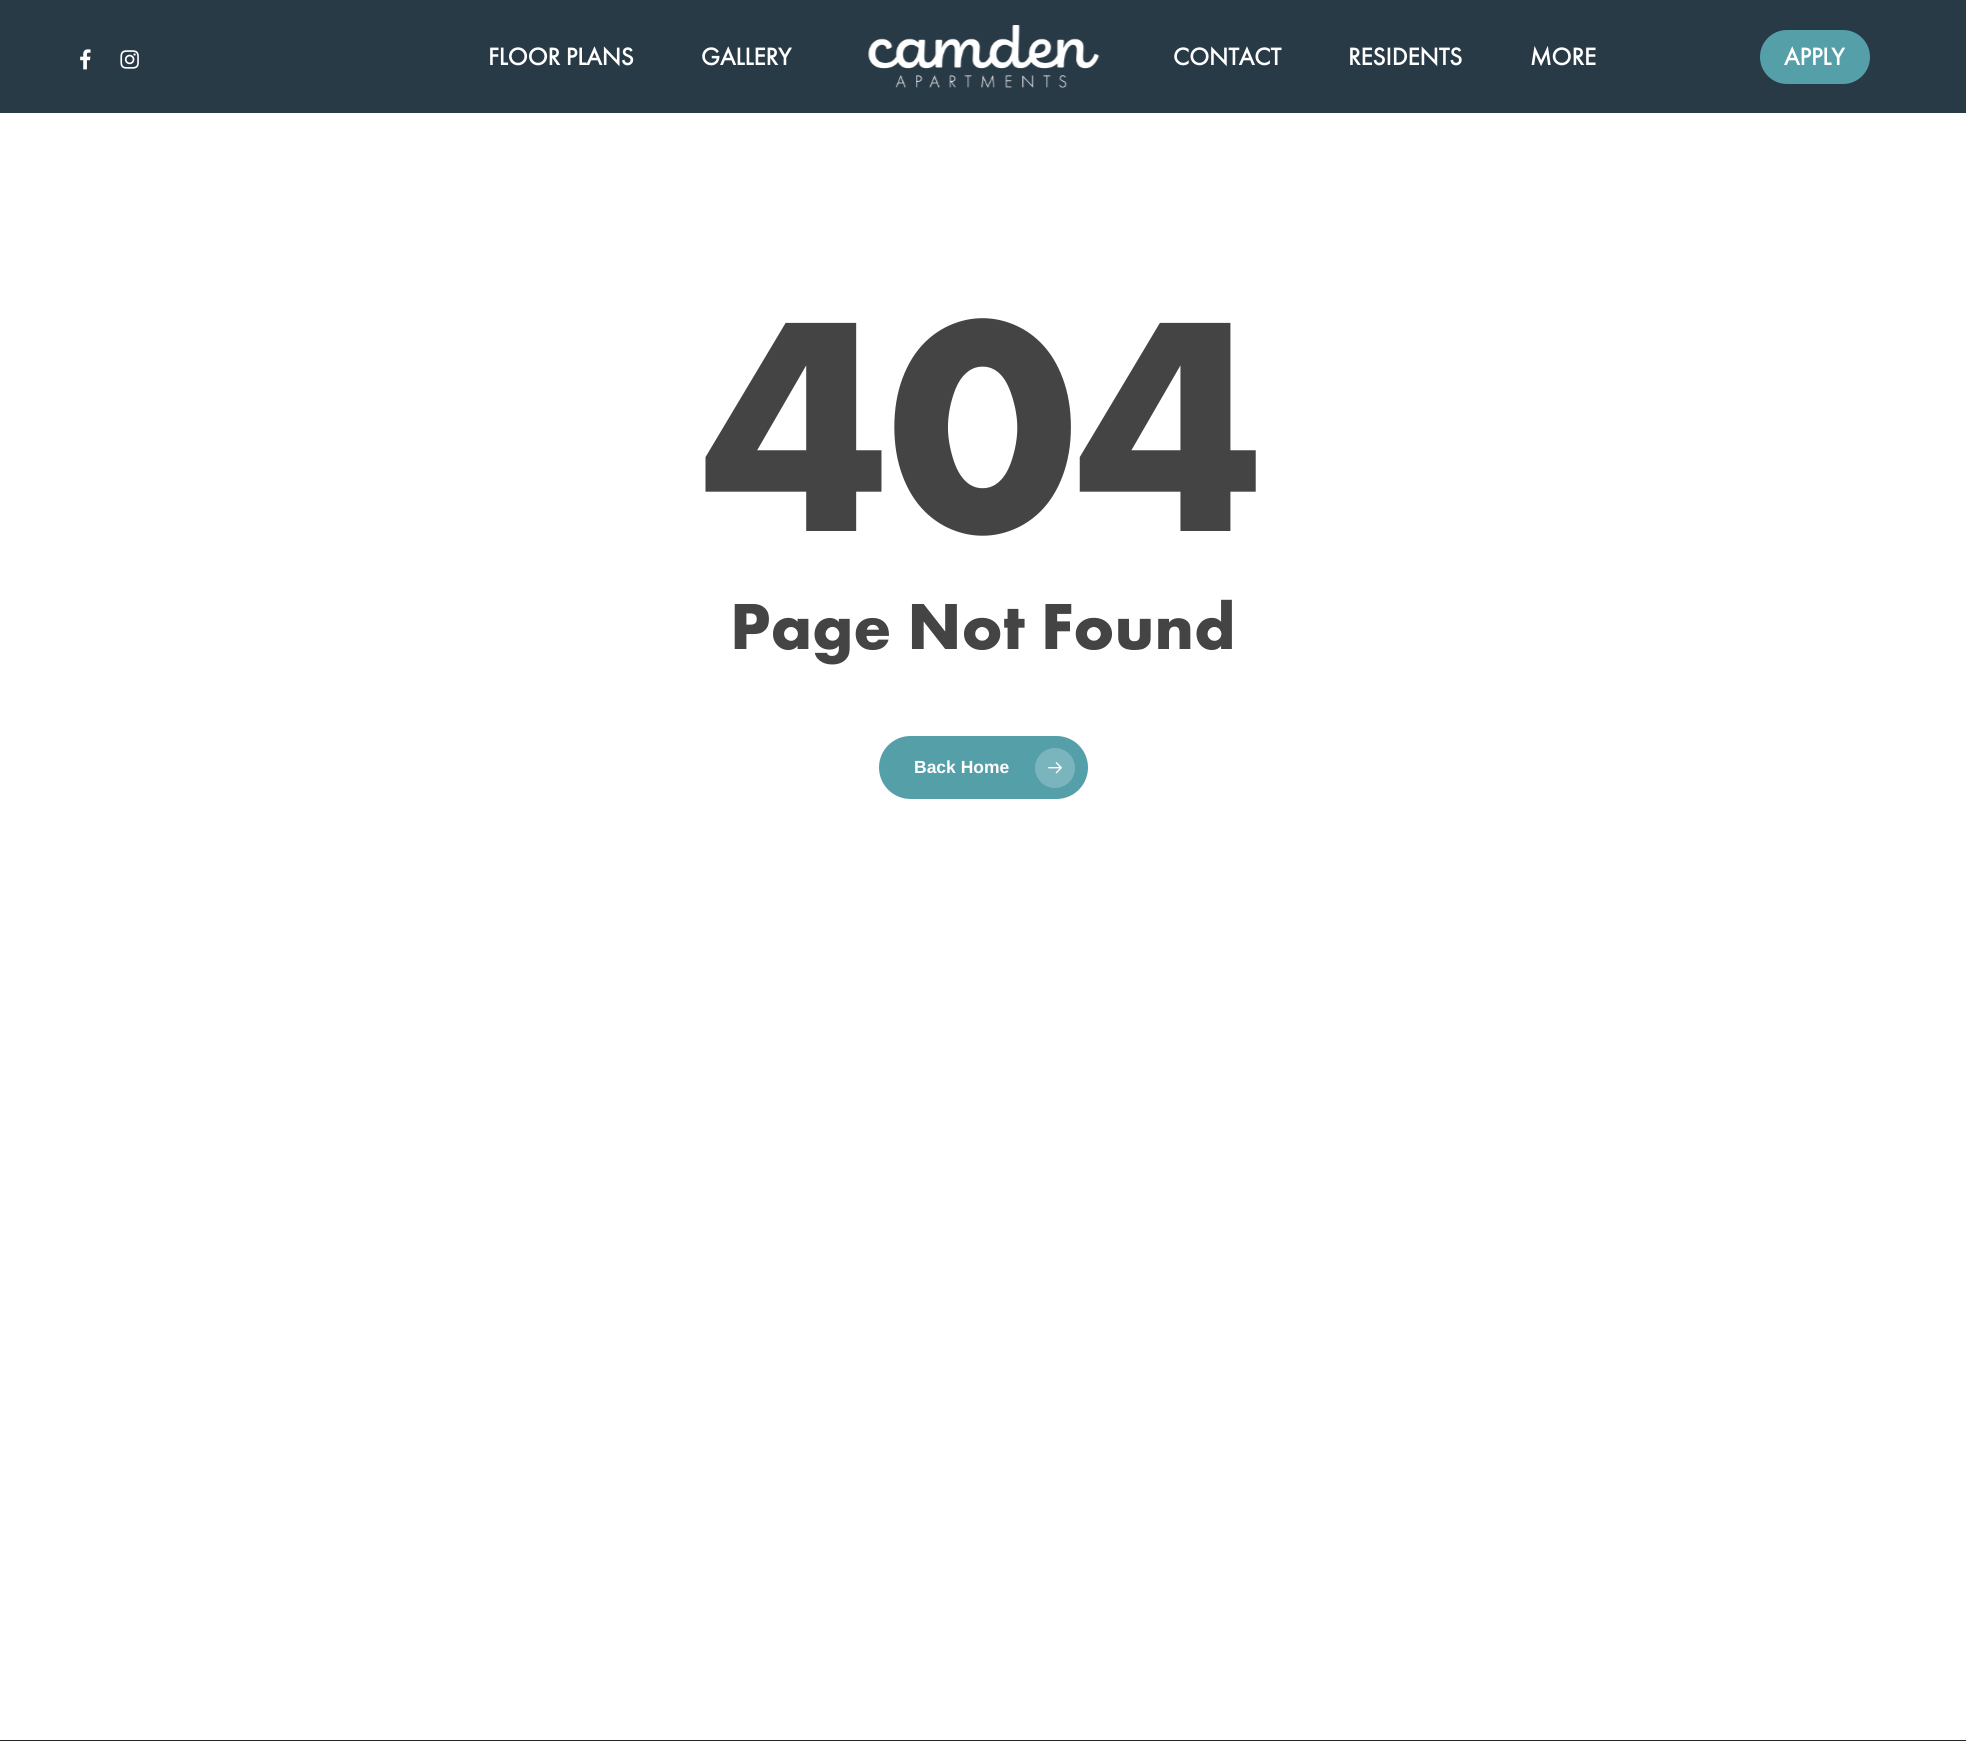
#include <cairo/cairo.h>
#include <math.h>
#include <stddef.h>

typedef struct { double x, y; const char *s; } line_t;
static cairo_t *cr;

static void rgb(unsigned color)
{
	cairo_set_source_rgb(cr, (color >> 16) / 255.0, (color >> 8 & 255) / 255.0, (color & 255) / 255.0);
}

static void rrect(double x, double y, double w, double h, double r)
{
	cairo_new_sub_path(cr);
	cairo_arc(cr, x + w - r, y + h - r, r, 0, M_PI / 2);
	cairo_arc(cr, x + r, y + h - r, r, M_PI / 2, M_PI);
	cairo_arc(cr, x + r, y + r, r, M_PI, 1.5 * M_PI);
	cairo_arc(cr, x + w - r, y + r, r, 1.5 * M_PI, 2 * M_PI);
	cairo_close_path(cr);
}

static void image(const char *path, double x, double y, double w, double h)
{
	cairo_surface_t *image = cairo_image_surface_create_from_png(path);
	cairo_save(cr);
	cairo_set_source_surface(cr, image, x, y);
	cairo_rectangle(cr, x, y, w, h);
	cairo_fill(cr);
	cairo_restore(cr);
	cairo_surface_destroy(image);
}

int main(void) {
	cairo_surface_t *surface = cairo_image_surface_create(CAIRO_FORMAT_RGB24, 1966, 1741);
	cr = cairo_create(surface);
	cairo_font_options_t *options = cairo_font_options_create();
	cairo_font_options_set_hint_metrics(options, CAIRO_HINT_METRICS_OFF);
	cairo_font_options_set_hint_style(options, CAIRO_HINT_STYLE_NONE);
	cairo_set_font_options(cr, options);
	cairo_set_miter_limit(cr, 4);
	rgb(0xffffff);
	cairo_paint(cr);
	rgb(0x293a47);
	cairo_rectangle(cr, 0, 0, 1966, 113);
	cairo_fill(cr);
	image("img/1.png", 868, 25, 232, 63);
	image("img/2.png", 80, 49, 11, 21);
	image("img/3.png", 120, 50, 19, 19);
	rgb(0x559fa9);
	rrect(1760, 30, 110, 54, 27);
	cairo_fill(cr);
	rrect(879, 736, 209, 63, 31.5);
	cairo_fill(cr);
	rgb(0x7ab4bc);
	cairo_arc(cr, 1055, 768, 20, 0, 2 * M_PI);
	cairo_fill(cr);
	image("img/4.png", 1048, 762, 14, 12);
	rgb(0x252525);
	cairo_rectangle(cr, 0, 1740, 1966, 1);
	cairo_fill(cr);
	cairo_select_font_face(cr, "Futura PT", CAIRO_FONT_SLANT_NORMAL, CAIRO_FONT_WEIGHT_BOLD);
	cairo_set_font_size(cr, 25);
	rgb(0xffffff);
	{
		static const line_t items[] = {
			{488, 65, "FLOOR PLANS"},
			{701, 65, "GALLERY"},
			{1173, 65, "CONTACT"},
			{1348, 65, "RESIDENTS"},
			{1530, 65, "MORE"},
			{1784, 65, "APPLY"},
		};
		for (size_t i = 0; i < sizeof items / sizeof *items; i++) {
			cairo_move_to(cr, items[i].x, items[i].y);
			cairo_show_text(cr, items[i].s);
		}
	}
	cairo_select_font_face(cr, "Futura PT", CAIRO_FONT_SLANT_ITALIC, CAIRO_FONT_WEIGHT_BOLD);
	cairo_set_font_size(cr, 312);
	rgb(0x444444);
	cairo_move_to(cr, 702, 531);
	cairo_show_text(cr, "404");
	cairo_set_font_size(cr, 67.5);
	cairo_move_to(cr, 730, 649);
	cairo_show_text(cr, "Page Not Found");
	cairo_select_font_face(cr, "Liberation Sans", CAIRO_FONT_SLANT_NORMAL, CAIRO_FONT_WEIGHT_BOLD);
	cairo_set_font_size(cr, 17.5);
	rgb(0xffffff);
	cairo_move_to(cr, 914, 773);
	cairo_show_text(cr, "Back Home");
	cairo_surface_write_to_png(surface, "page.png");
	cairo_font_options_destroy(options);
	cairo_destroy(cr);
	cairo_surface_destroy(surface);
	return 0;
}
